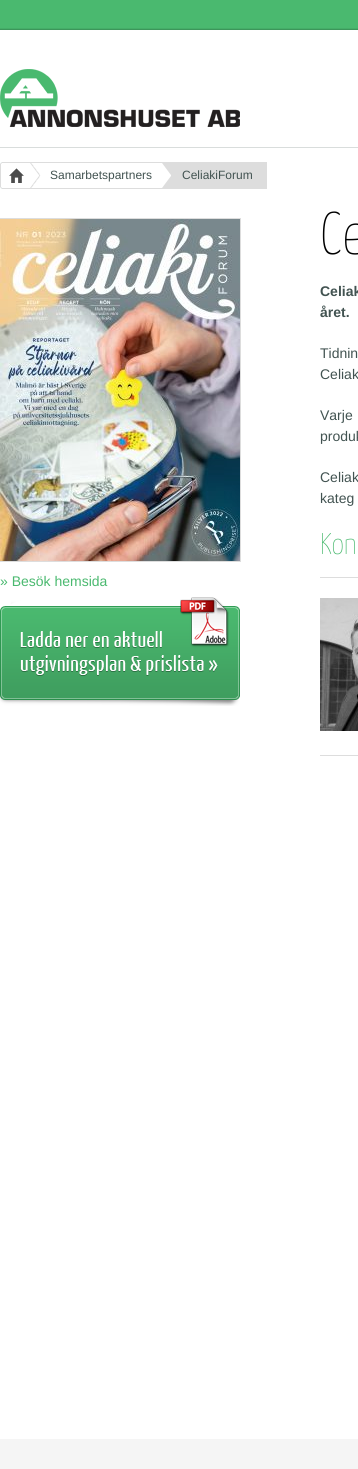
#include <cairo/cairo.h>
#include <math.h>
#include <stddef.h>

typedef struct { double x, y; const char *s; } line_t;
static cairo_t *cr;

static void rgb(unsigned color)
{
	cairo_set_source_rgb(cr, (color >> 16) / 255.0, (color >> 8 & 255) / 255.0, (color & 255) / 255.0);
}

static void image(const char *path, double x, double y, double w, double h)
{
	cairo_surface_t *image = cairo_image_surface_create_from_png(path);
	cairo_save(cr);
	cairo_set_source_surface(cr, image, x, y);
	cairo_rectangle(cr, x, y, w, h);
	cairo_fill(cr);
	cairo_restore(cr);
	cairo_surface_destroy(image);
}

int main(void) {
	cairo_surface_t *surface = cairo_image_surface_create(CAIRO_FORMAT_RGB24, 358, 1469);
	cr = cairo_create(surface);
	cairo_font_options_t *options = cairo_font_options_create();
	cairo_font_options_set_hint_metrics(options, CAIRO_HINT_METRICS_OFF);
	cairo_font_options_set_hint_style(options, CAIRO_HINT_STYLE_NONE);
	cairo_set_font_options(cr, options);
	cairo_set_miter_limit(cr, 4);
	rgb(0xffffff);
	cairo_paint(cr);
	rgb(0x4ab96f);
	cairo_rectangle(cr, 0, 0, 358, 28);
	cairo_fill(cr);
	image("img/1.png", 0, 28, 358, 2);
	rgb(0xd9dddc);
	cairo_rectangle(cr, 0, 147, 358, 1);
	cairo_fill(cr);
	image("img/2.png", 0, 69, 240, 58);
	image("img/3.png", 0, 162, 3, 27);
	image("img/4.png", 9, 168, 15, 15);
	rgb(0xdddddd);
	cairo_rectangle(cr, 3, 162, 160, 1);
	cairo_fill(cr);
	cairo_rectangle(cr, 3, 188, 160, 1);
	cairo_fill(cr);
	image("img/5.png", 30, 163, 11, 25);
	cairo_rectangle(cr, 162, 162, 105, 27);
	cairo_fill(cr);
	image("img/6.png", 162, 163, 9, 25);
	cairo_rectangle(cr, 320, 577, 38, 1);
	cairo_fill(cr);
	cairo_rectangle(cr, 320, 755, 38, 1);
	cairo_fill(cr);
	image("img/7.png", 320, 598, 38, 133);
	image("img/8.png", 0, 219, 240, 342);
	cairo_rectangle(cr, -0.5, 218.5, 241, 343);
	cairo_set_line_width(cr, 1);
	cairo_stroke(cr);
	image("img/9.png", 0, 597, 240, 109);
	rgb(0xf5f5f5);
	cairo_rectangle(cr, 0, 1439, 358, 30);
	cairo_fill(cr);
	cairo_select_font_face(cr, "Liberation Sans", CAIRO_FONT_SLANT_NORMAL, CAIRO_FONT_WEIGHT_NORMAL);
	cairo_set_font_size(cr, 12);
	rgb(0x425351);
	cairo_move_to(cr, 50, 179);
	cairo_show_text(cr, "Samarbetspartners");
	cairo_move_to(cr, 182, 179);
	cairo_show_text(cr, "CeliakiForum");
	cairo_select_font_face(cr, "Yanone Kaffeesatz ExtraLight", CAIRO_FONT_SLANT_NORMAL, CAIRO_FONT_WEIGHT_NORMAL);
	cairo_set_font_size(cr, 60);
	rgb(0x000000);
	cairo_move_to(cr, 320, 254);
	cairo_show_text(cr, "Ce");
	cairo_select_font_face(cr, "Liberation Sans", CAIRO_FONT_SLANT_NORMAL, CAIRO_FONT_WEIGHT_BOLD);
	cairo_set_font_size(cr, 14);
	rgb(0x425351);
	cairo_move_to(cr, 320, 296);
	cairo_show_text(cr, "Celiak");
	cairo_move_to(cr, 320, 317);
	cairo_show_text(cr, "året.");
	cairo_select_font_face(cr, "Liberation Sans", CAIRO_FONT_SLANT_NORMAL, CAIRO_FONT_WEIGHT_NORMAL);
	{
		static const line_t items[] = {
			{320, 358, "Tidnin"},
			{320, 379, "Celiak"},
			{320, 420, "Varje"},
			{320, 441, "produk"},
			{320, 482, "Celiak"},
			{320, 503, "kateg"},
		};
		for (size_t i = 0; i < sizeof items / sizeof *items; i++) {
			cairo_move_to(cr, items[i].x, items[i].y);
			cairo_show_text(cr, items[i].s);
		}
	}
	cairo_select_font_face(cr, "Yanone Kaffeesatz ExtraLight", CAIRO_FONT_SLANT_NORMAL, CAIRO_FONT_WEIGHT_NORMAL);
	cairo_set_font_size(cr, 30);
	rgb(0x4ab96f);
	cairo_move_to(cr, 320, 554);
	cairo_show_text(cr, "Kon");
	cairo_select_font_face(cr, "Liberation Sans", CAIRO_FONT_SLANT_NORMAL, CAIRO_FONT_WEIGHT_NORMAL);
	cairo_set_font_size(cr, 14);
	cairo_move_to(cr, 0, 586);
	cairo_show_text(cr, "» Besök hemsida");
	cairo_surface_write_to_png(surface, "page.png");
	cairo_font_options_destroy(options);
	cairo_destroy(cr);
	cairo_surface_destroy(surface);
	return 0;
}
